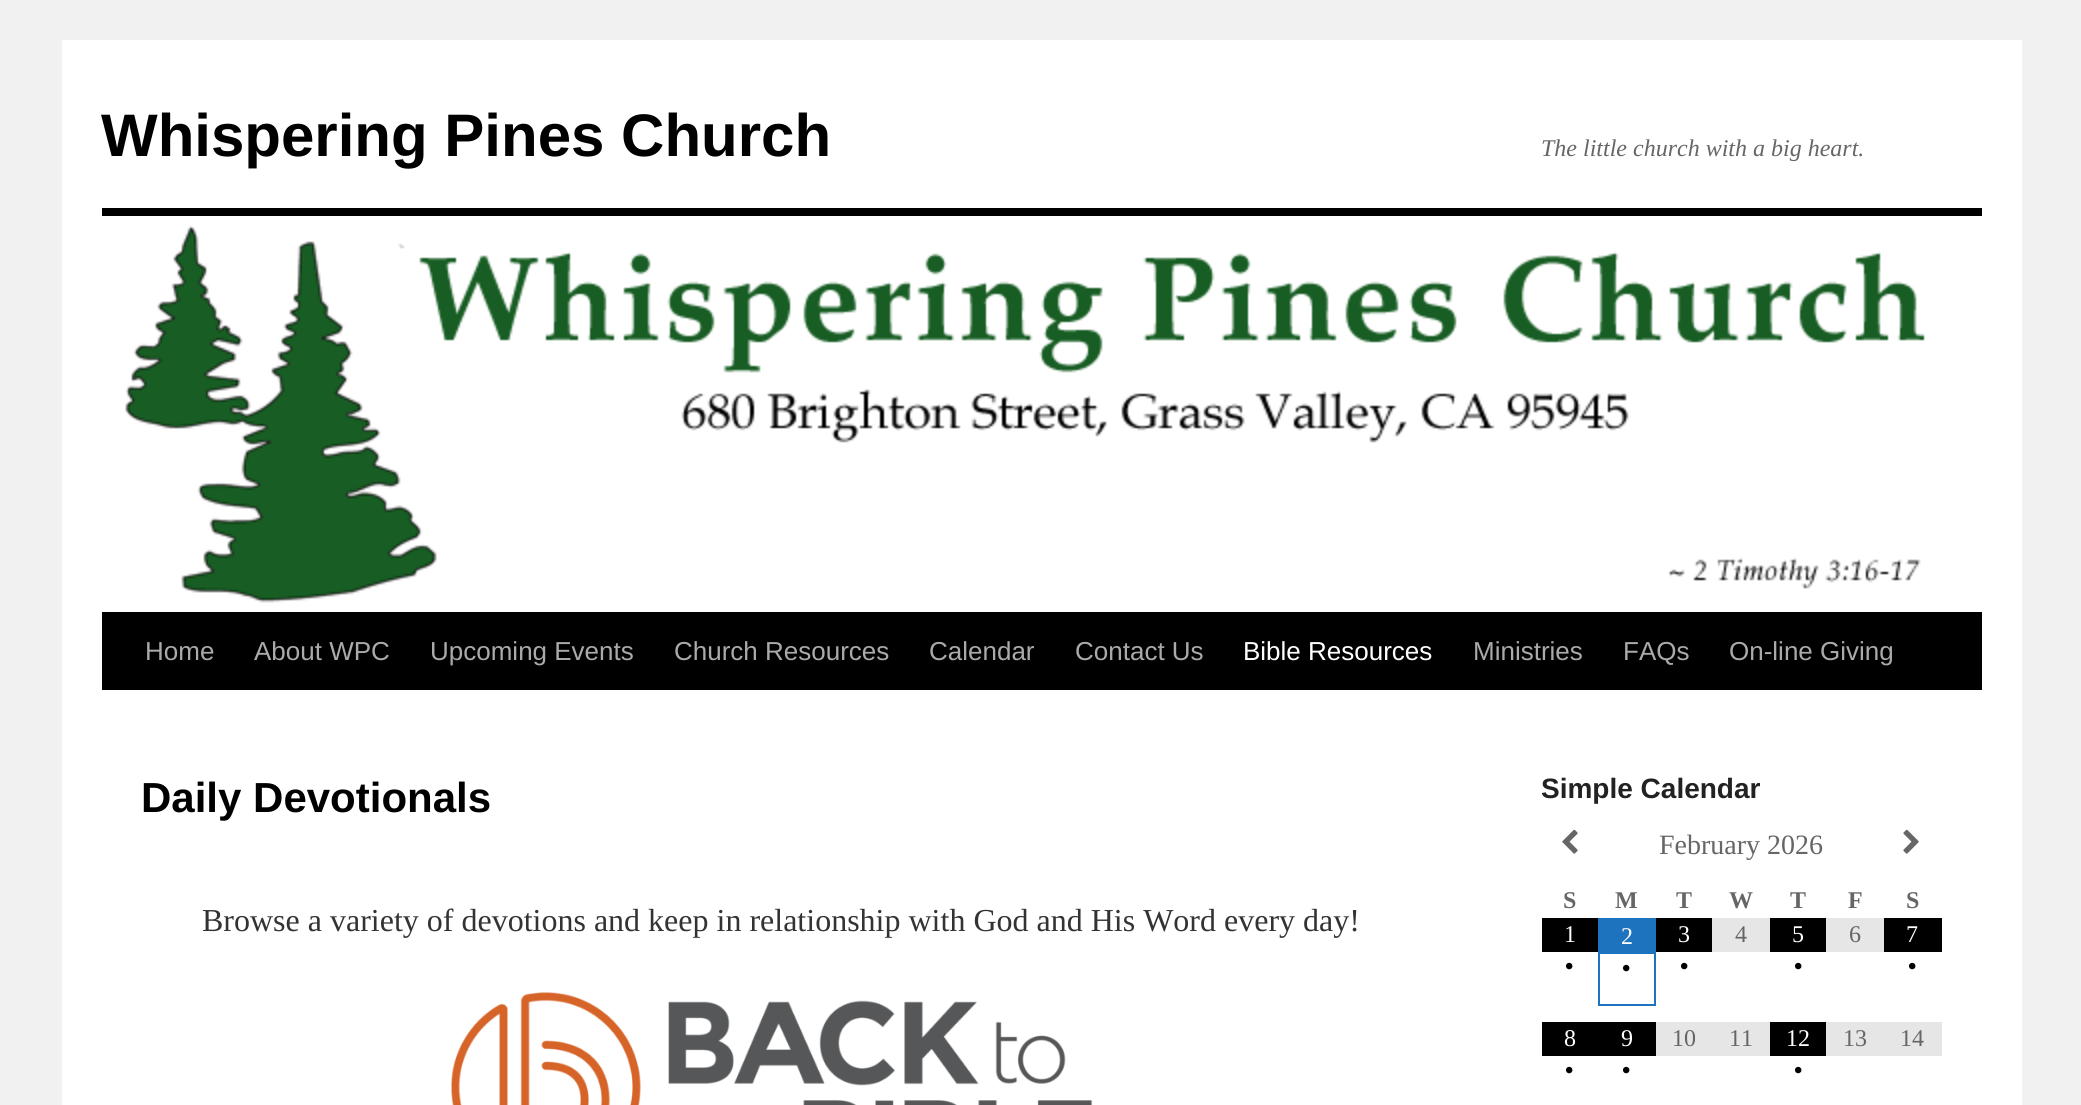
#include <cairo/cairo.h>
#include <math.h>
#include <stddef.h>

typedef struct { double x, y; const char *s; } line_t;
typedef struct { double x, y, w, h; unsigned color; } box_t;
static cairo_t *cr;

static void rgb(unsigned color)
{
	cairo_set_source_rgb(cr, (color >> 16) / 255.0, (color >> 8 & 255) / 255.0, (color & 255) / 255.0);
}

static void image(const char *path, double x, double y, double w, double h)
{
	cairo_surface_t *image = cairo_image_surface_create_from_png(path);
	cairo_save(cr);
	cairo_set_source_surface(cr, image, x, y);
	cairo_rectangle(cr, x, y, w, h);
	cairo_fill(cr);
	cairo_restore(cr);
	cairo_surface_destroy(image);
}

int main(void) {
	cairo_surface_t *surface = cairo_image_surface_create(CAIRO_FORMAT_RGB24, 2081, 1105);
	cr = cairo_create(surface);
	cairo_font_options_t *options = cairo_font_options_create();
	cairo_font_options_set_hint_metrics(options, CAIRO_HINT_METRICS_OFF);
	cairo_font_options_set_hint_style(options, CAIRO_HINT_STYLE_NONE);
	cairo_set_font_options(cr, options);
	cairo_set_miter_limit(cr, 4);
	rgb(0xf1f1f1);
	cairo_paint(cr);
	{
		static const box_t items[] = {
			{62, 40, 1960, 1065, 0xffffff},
			{102, 208, 1880, 8, 0x000000},
			{102, 612, 1880, 78, 0x000000},
		};
		for (size_t i = 0; i < sizeof items / sizeof *items; i++) {
			rgb(items[i].color);
			cairo_rectangle(cr, items[i].x, items[i].y, items[i].w, items[i].h);
			cairo_fill(cr);
		}
	}
	image("img/1.png", 125, 225, 1800, 378);
	image("img/2.png", 451, 992, 642, 113);
	image("img/3.png", 1562, 829, 16, 25);
	image("img/4.png", 1903, 829, 16, 25);
	cairo_rectangle(cr, 1542, 918, 56, 34);
	cairo_fill(cr);
	cairo_rectangle(cr, 1599, 919, 56, 86);
	rgb(0x1e73be);
	cairo_stroke(cr);
	{
		static const box_t items[] = {
			{1600, 920, 54, 34, 0x1e73be},
			{1656, 918, 56, 34, 0x000000},
			{1712, 918, 58, 34, 0xe6e6e6},
			{1770, 918, 56, 34, 0x000000},
			{1826, 918, 58, 34, 0xe6e6e6},
			{1884, 918, 58, 34, 0x000000},
			{1542, 1022, 114, 34, 0x000000},
			{1656, 1022, 114, 34, 0xe6e6e6},
			{1770, 1022, 56, 34, 0x000000},
			{1826, 1022, 116, 34, 0xe6e6e6},
		};
		for (size_t i = 0; i < sizeof items / sizeof *items; i++) {
			rgb(items[i].color);
			cairo_rectangle(cr, items[i].x, items[i].y, items[i].w, items[i].h);
			cairo_fill(cr);
		}
	}
	cairo_select_font_face(cr, "Liberation Sans", CAIRO_FONT_SLANT_NORMAL, CAIRO_FONT_WEIGHT_BOLD);
	cairo_set_font_size(cr, 60);
	rgb(0x000000);
	cairo_move_to(cr, 101, 156);
	cairo_show_text(cr, "Whispering Pines Church");
	cairo_select_font_face(cr, "Liberation Serif", CAIRO_FONT_SLANT_ITALIC, CAIRO_FONT_WEIGHT_NORMAL);
	cairo_set_font_size(cr, 24);
	rgb(0x666666);
	cairo_move_to(cr, 1541, 156);
	cairo_show_text(cr, "The little church with a big heart.");
	cairo_select_font_face(cr, "Liberation Sans", CAIRO_FONT_SLANT_NORMAL, CAIRO_FONT_WEIGHT_NORMAL);
	cairo_set_font_size(cr, 26);
	rgb(0xaaaaaa);
	{
		static const line_t items[] = {
			{145, 660, "Home"},
			{254, 660, "About WPC"},
			{430, 660, "Upcoming Events"},
			{674, 660, "Church Resources"},
			{929, 660, "Calendar"},
			{1075, 660, "Contact Us"},
		};
		for (size_t i = 0; i < sizeof items / sizeof *items; i++) {
			cairo_move_to(cr, items[i].x, items[i].y);
			cairo_show_text(cr, items[i].s);
		}
	}
	rgb(0xffffff);
	cairo_move_to(cr, 1243, 660);
	cairo_show_text(cr, "Bible Resources");
	rgb(0xaaaaaa);
	{
		static const line_t items[] = {
			{1473, 660, "Ministries"},
			{1623, 660, "FAQs"},
			{1729, 660, "On-line Giving"},
		};
		for (size_t i = 0; i < sizeof items / sizeof *items; i++) {
			cairo_move_to(cr, items[i].x, items[i].y);
			cairo_show_text(cr, items[i].s);
		}
	}
	cairo_select_font_face(cr, "Liberation Sans", CAIRO_FONT_SLANT_NORMAL, CAIRO_FONT_WEIGHT_BOLD);
	cairo_set_font_size(cr, 42);
	rgb(0x000000);
	cairo_move_to(cr, 141, 812);
	cairo_show_text(cr, "Daily Devotionals");
	cairo_select_font_face(cr, "Liberation Serif", CAIRO_FONT_SLANT_NORMAL, CAIRO_FONT_WEIGHT_NORMAL);
	cairo_set_font_size(cr, 32);
	rgb(0x333333);
	cairo_move_to(cr, 202, 931);
	cairo_show_text(cr, "Browse a variety of devotions and keep in relationship with God and His Word every day!");
	cairo_select_font_face(cr, "Liberation Sans", CAIRO_FONT_SLANT_NORMAL, CAIRO_FONT_WEIGHT_BOLD);
	cairo_set_font_size(cr, 28);
	rgb(0x222222);
	cairo_move_to(cr, 1541, 798);
	cairo_show_text(cr, "Simple Calendar");
	cairo_select_font_face(cr, "Liberation Serif", CAIRO_FONT_SLANT_NORMAL, CAIRO_FONT_WEIGHT_NORMAL);
	rgb(0x666666);
	cairo_move_to(cr, 1659, 854);
	cairo_show_text(cr, "February 2026");
	cairo_select_font_face(cr, "Liberation Serif", CAIRO_FONT_SLANT_NORMAL, CAIRO_FONT_WEIGHT_BOLD);
	cairo_set_font_size(cr, 24);
	{
		static const line_t items[] = {
			{1563, 908, "S"},
			{1615, 908, "M"},
			{1676, 908, "T"},
			{1729, 908, "W"},
			{1790, 908, "T"},
			{1848, 908, "F"},
			{1906, 908, "S"},
		};
		for (size_t i = 0; i < sizeof items / sizeof *items; i++) {
			cairo_move_to(cr, items[i].x, items[i].y);
			cairo_show_text(cr, items[i].s);
		}
	}
	cairo_select_font_face(cr, "Liberation Serif", CAIRO_FONT_SLANT_NORMAL, CAIRO_FONT_WEIGHT_NORMAL);
	rgb(0xffffff);
	cairo_move_to(cr, 1564, 942);
	cairo_show_text(cr, "1");
	cairo_select_font_face(cr, "Liberation Serif", CAIRO_FONT_SLANT_NORMAL, CAIRO_FONT_WEIGHT_BOLD);
	rgb(0x000000);
	cairo_move_to(cr, 1565, 974);
	cairo_show_text(cr, "•");
	cairo_select_font_face(cr, "Liberation Serif", CAIRO_FONT_SLANT_NORMAL, CAIRO_FONT_WEIGHT_NORMAL);
	rgb(0xffffff);
	cairo_move_to(cr, 1621, 944);
	cairo_show_text(cr, "2");
	cairo_select_font_face(cr, "Liberation Serif", CAIRO_FONT_SLANT_NORMAL, CAIRO_FONT_WEIGHT_BOLD);
	rgb(0x000000);
	cairo_move_to(cr, 1622, 976);
	cairo_show_text(cr, "•");
	cairo_select_font_face(cr, "Liberation Serif", CAIRO_FONT_SLANT_NORMAL, CAIRO_FONT_WEIGHT_NORMAL);
	rgb(0xffffff);
	cairo_move_to(cr, 1678, 942);
	cairo_show_text(cr, "3");
	cairo_select_font_face(cr, "Liberation Serif", CAIRO_FONT_SLANT_NORMAL, CAIRO_FONT_WEIGHT_BOLD);
	rgb(0x000000);
	cairo_move_to(cr, 1680, 974);
	cairo_show_text(cr, "•");
	cairo_select_font_face(cr, "Liberation Serif", CAIRO_FONT_SLANT_NORMAL, CAIRO_FONT_WEIGHT_NORMAL);
	rgb(0x666666);
	cairo_move_to(cr, 1735, 942);
	cairo_show_text(cr, "4");
	rgb(0xffffff);
	cairo_move_to(cr, 1792, 942);
	cairo_show_text(cr, "5");
	cairo_select_font_face(cr, "Liberation Serif", CAIRO_FONT_SLANT_NORMAL, CAIRO_FONT_WEIGHT_BOLD);
	rgb(0x000000);
	cairo_move_to(cr, 1794, 974);
	cairo_show_text(cr, "•");
	cairo_select_font_face(cr, "Liberation Serif", CAIRO_FONT_SLANT_NORMAL, CAIRO_FONT_WEIGHT_NORMAL);
	rgb(0x666666);
	cairo_move_to(cr, 1849, 942);
	cairo_show_text(cr, "6");
	rgb(0xffffff);
	cairo_move_to(cr, 1906, 942);
	cairo_show_text(cr, "7");
	cairo_select_font_face(cr, "Liberation Serif", CAIRO_FONT_SLANT_NORMAL, CAIRO_FONT_WEIGHT_BOLD);
	rgb(0x000000);
	cairo_move_to(cr, 1908, 974);
	cairo_show_text(cr, "•");
	cairo_select_font_face(cr, "Liberation Serif", CAIRO_FONT_SLANT_NORMAL, CAIRO_FONT_WEIGHT_NORMAL);
	rgb(0xffffff);
	cairo_move_to(cr, 1564, 1046);
	cairo_show_text(cr, "8");
	cairo_select_font_face(cr, "Liberation Serif", CAIRO_FONT_SLANT_NORMAL, CAIRO_FONT_WEIGHT_BOLD);
	rgb(0x000000);
	cairo_move_to(cr, 1565, 1078);
	cairo_show_text(cr, "•");
	cairo_select_font_face(cr, "Liberation Serif", CAIRO_FONT_SLANT_NORMAL, CAIRO_FONT_WEIGHT_NORMAL);
	rgb(0xffffff);
	cairo_move_to(cr, 1621, 1046);
	cairo_show_text(cr, "9");
	cairo_select_font_face(cr, "Liberation Serif", CAIRO_FONT_SLANT_NORMAL, CAIRO_FONT_WEIGHT_BOLD);
	rgb(0x000000);
	cairo_move_to(cr, 1622, 1078);
	cairo_show_text(cr, "•");
	cairo_select_font_face(cr, "Liberation Serif", CAIRO_FONT_SLANT_NORMAL, CAIRO_FONT_WEIGHT_NORMAL);
	rgb(0x666666);
	cairo_move_to(cr, 1672, 1046);
	cairo_show_text(cr, "10");
	cairo_move_to(cr, 1729, 1046);
	cairo_show_text(cr, "11");
	rgb(0xffffff);
	cairo_move_to(cr, 1786, 1046);
	cairo_show_text(cr, "12");
	cairo_select_font_face(cr, "Liberation Serif", CAIRO_FONT_SLANT_NORMAL, CAIRO_FONT_WEIGHT_BOLD);
	rgb(0x000000);
	cairo_move_to(cr, 1794, 1078);
	cairo_show_text(cr, "•");
	cairo_select_font_face(cr, "Liberation Serif", CAIRO_FONT_SLANT_NORMAL, CAIRO_FONT_WEIGHT_NORMAL);
	rgb(0x666666);
	cairo_move_to(cr, 1843, 1046);
	cairo_show_text(cr, "13");
	cairo_move_to(cr, 1900, 1046);
	cairo_show_text(cr, "14");
	cairo_surface_write_to_png(surface, "page.png");
	cairo_font_options_destroy(options);
	cairo_destroy(cr);
	cairo_surface_destroy(surface);
	return 0;
}
